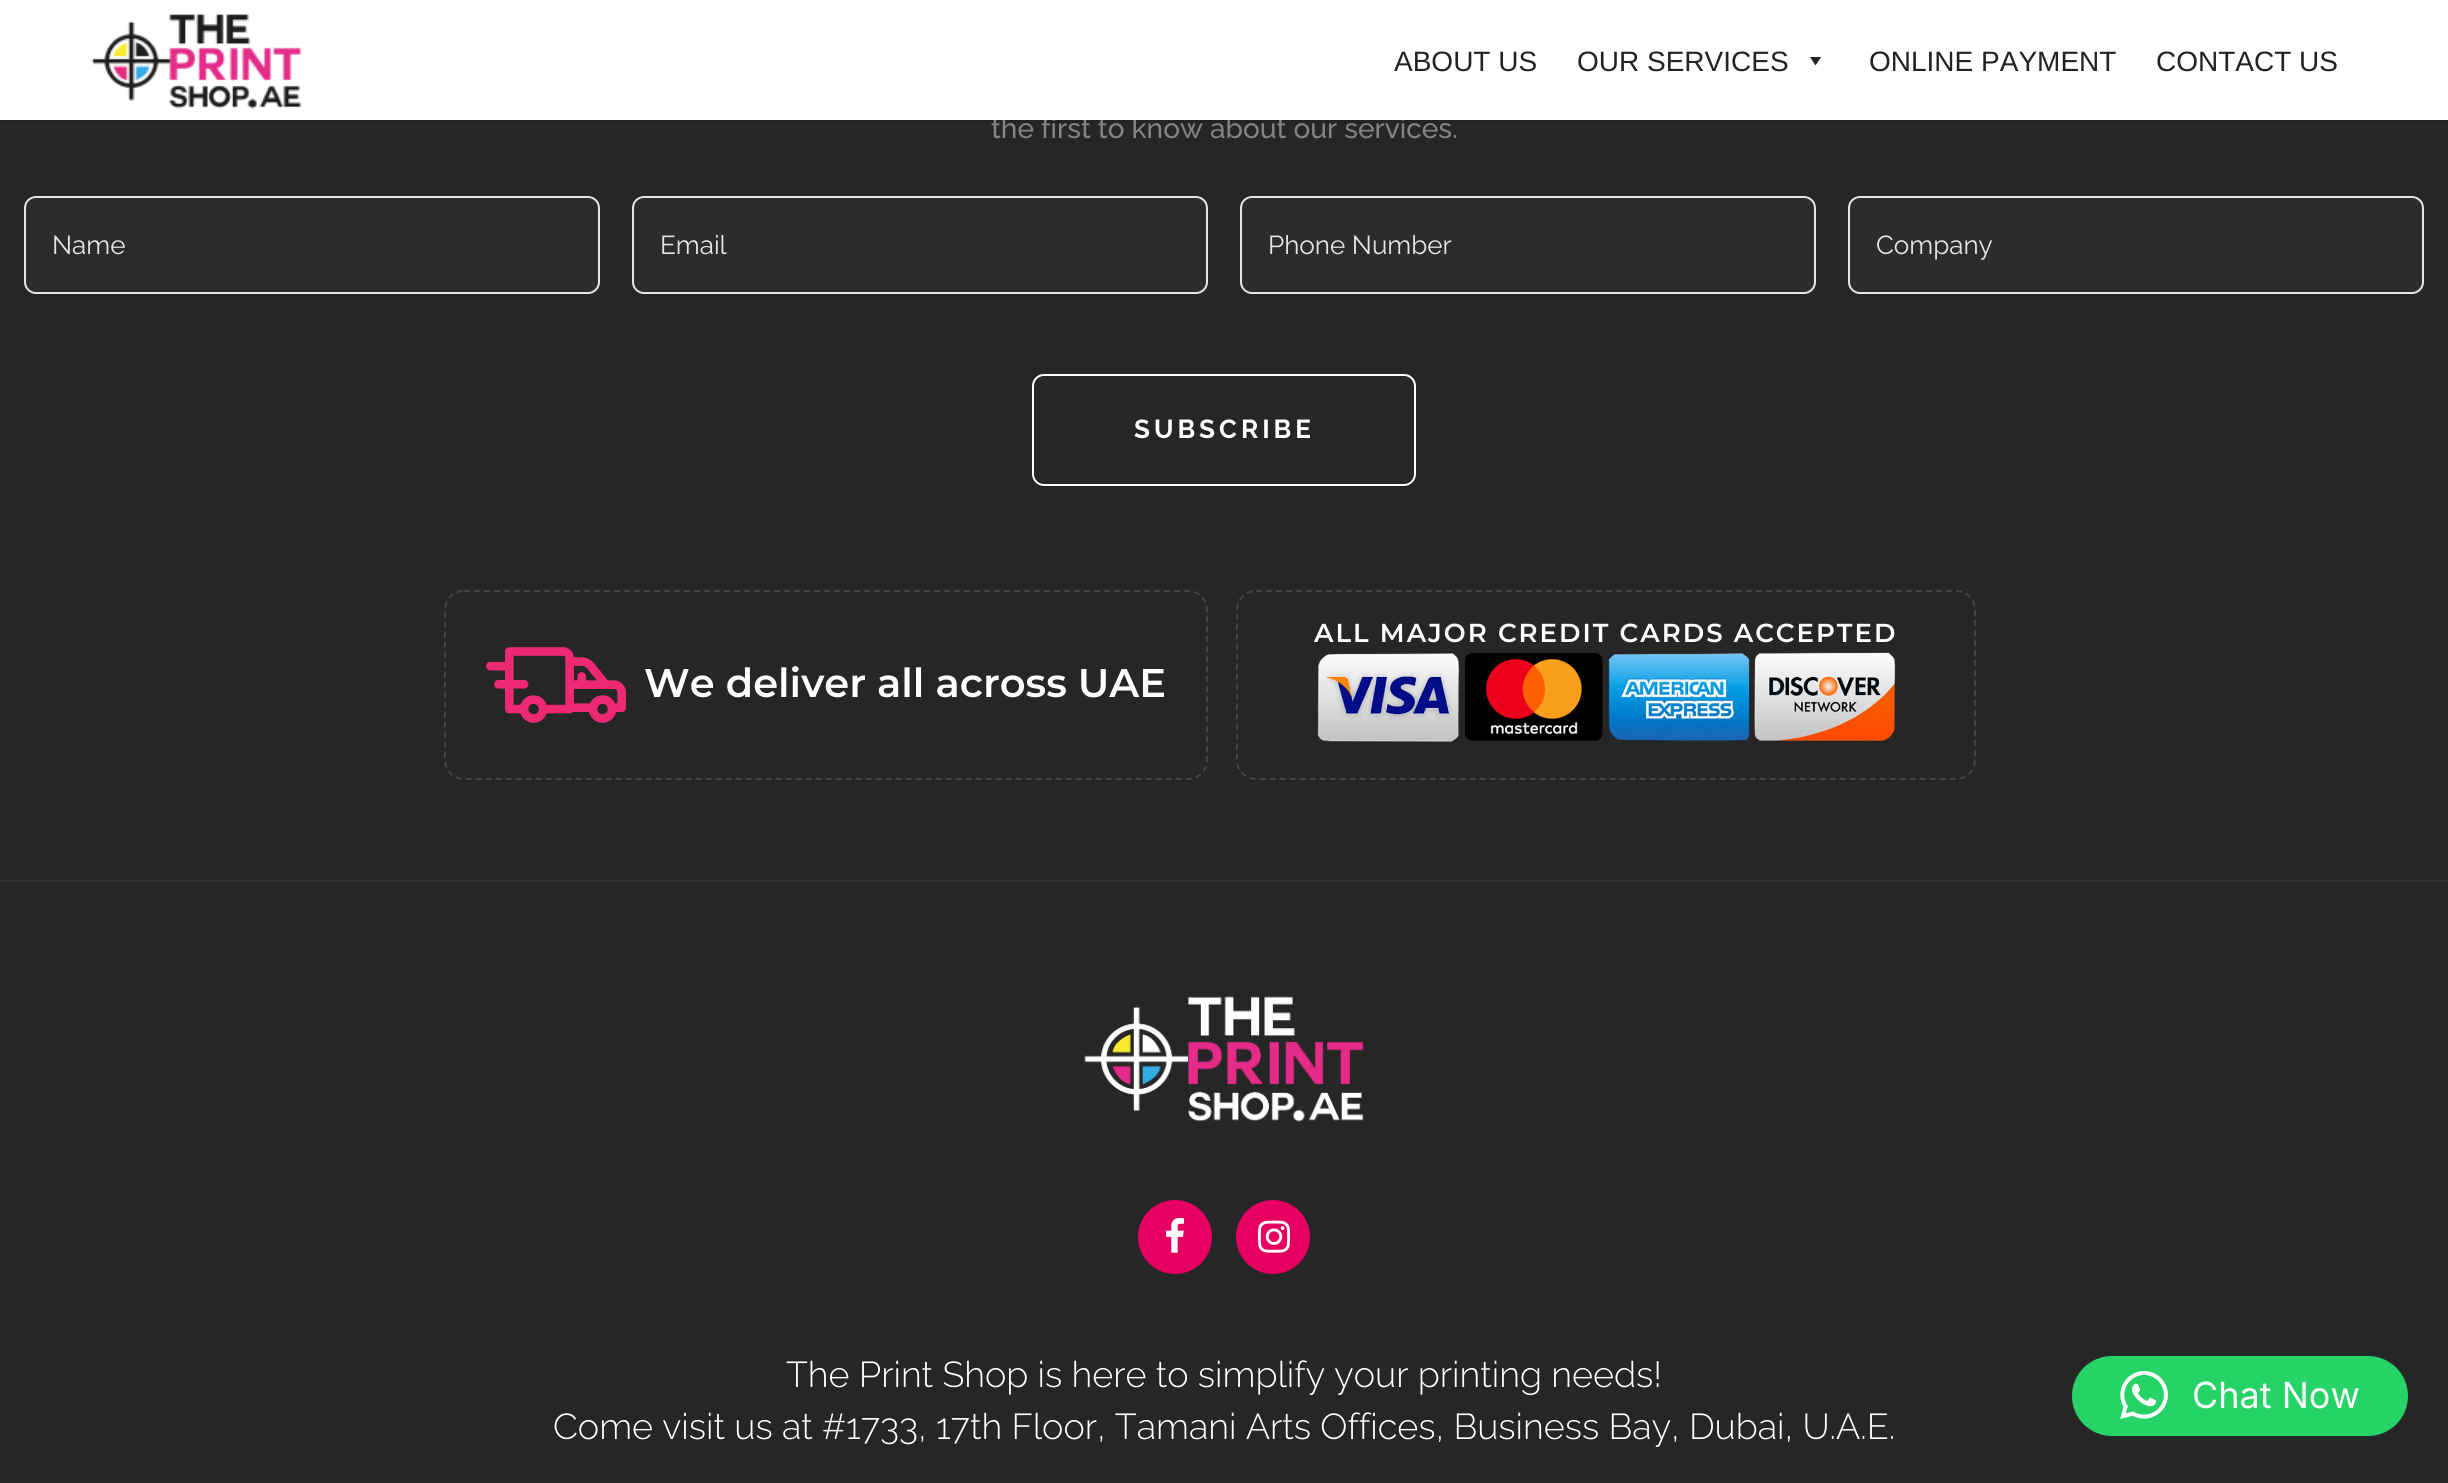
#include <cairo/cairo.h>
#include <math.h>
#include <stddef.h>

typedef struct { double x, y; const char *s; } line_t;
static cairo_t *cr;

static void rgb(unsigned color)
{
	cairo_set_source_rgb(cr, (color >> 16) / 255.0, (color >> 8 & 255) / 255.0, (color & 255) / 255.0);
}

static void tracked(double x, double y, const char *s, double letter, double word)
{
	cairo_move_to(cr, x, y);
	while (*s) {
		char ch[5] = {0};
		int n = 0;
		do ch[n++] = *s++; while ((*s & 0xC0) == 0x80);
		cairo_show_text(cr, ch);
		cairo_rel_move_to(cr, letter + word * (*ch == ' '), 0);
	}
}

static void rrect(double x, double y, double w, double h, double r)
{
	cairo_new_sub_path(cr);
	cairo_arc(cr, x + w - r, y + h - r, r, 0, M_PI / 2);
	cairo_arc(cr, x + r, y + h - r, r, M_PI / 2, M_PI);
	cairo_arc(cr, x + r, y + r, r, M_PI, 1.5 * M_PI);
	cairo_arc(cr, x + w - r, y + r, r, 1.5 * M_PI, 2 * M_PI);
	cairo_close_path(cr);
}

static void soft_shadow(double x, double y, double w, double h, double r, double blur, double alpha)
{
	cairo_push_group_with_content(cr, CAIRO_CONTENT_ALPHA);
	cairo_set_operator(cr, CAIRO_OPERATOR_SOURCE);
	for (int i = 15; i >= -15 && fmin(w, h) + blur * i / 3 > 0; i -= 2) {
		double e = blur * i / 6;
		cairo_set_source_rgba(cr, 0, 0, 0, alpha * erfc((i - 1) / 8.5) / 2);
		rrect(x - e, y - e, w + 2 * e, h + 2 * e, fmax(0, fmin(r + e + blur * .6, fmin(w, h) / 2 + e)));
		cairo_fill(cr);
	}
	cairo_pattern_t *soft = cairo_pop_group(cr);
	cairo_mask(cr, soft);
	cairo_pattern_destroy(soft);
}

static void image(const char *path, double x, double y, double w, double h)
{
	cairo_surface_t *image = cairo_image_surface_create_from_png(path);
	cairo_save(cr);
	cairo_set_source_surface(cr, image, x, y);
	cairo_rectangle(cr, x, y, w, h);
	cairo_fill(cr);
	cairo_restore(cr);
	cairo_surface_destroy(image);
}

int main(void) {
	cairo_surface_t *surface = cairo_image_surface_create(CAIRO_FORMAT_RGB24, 2448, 1483);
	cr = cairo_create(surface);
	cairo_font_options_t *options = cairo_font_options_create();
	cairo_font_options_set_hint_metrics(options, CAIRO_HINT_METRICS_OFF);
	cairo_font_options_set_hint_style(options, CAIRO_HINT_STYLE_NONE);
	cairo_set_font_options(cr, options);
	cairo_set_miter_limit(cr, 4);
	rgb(0x262626);
	cairo_paint(cr);
	rgb(0x000000);
	soft_shadow(0, 2, 2448, 120, 0, 3, 0.11);
	rgb(0x2c2c2c);
	rrect(25, 197, 574, 96, 11);
	cairo_fill_preserve(cr);
	rgb(0xe6e6e6);
	cairo_stroke(cr);
	rgb(0x2c2c2c);
	rrect(633, 197, 574, 96, 11);
	cairo_fill_preserve(cr);
	rgb(0xe6e6e6);
	cairo_stroke(cr);
	rgb(0x2c2c2c);
	rrect(1241, 197, 574, 96, 11);
	cairo_fill_preserve(cr);
	rgb(0xe6e6e6);
	cairo_stroke(cr);
	rgb(0x2c2c2c);
	rrect(1849, 197, 574, 96, 11);
	cairo_fill_preserve(cr);
	rgb(0xe6e6e6);
	cairo_stroke(cr);
	rrect(1033, 375, 382, 110, 11);
	rgb(0xffffff);
	cairo_stroke(cr);
	cairo_new_path(cr);
	cairo_move_to(cr, 1256, 591);
	cairo_line_to(cr, 1956, 591);
	cairo_curve_to(cr, 1966.5, 591, 1975, 599.5, 1975, 610);
	cairo_line_to(cr, 1975, 760);
	cairo_curve_to(cr, 1975, 770.5, 1966.5, 779, 1956, 779);
	cairo_line_to(cr, 1256, 779);
	cairo_curve_to(cr, 1245.5, 779, 1237, 770.5, 1237, 760);
	cairo_line_to(cr, 1237, 610);
	cairo_curve_to(cr, 1237, 599.5, 1245.5, 591, 1256, 591);
	cairo_close_path(cr);
	rgb(0x444444);
	cairo_set_dash(cr, (double[]){6, 4}, 2, 0);
	cairo_stroke(cr);
	image("img/2.png", 1317, 652, 579, 90);
	cairo_new_path(cr);
	cairo_move_to(cr, 464, 591);
	cairo_line_to(cr, 1188, 591);
	cairo_curve_to(cr, 1198.5, 591, 1207, 599.5, 1207, 610);
	cairo_line_to(cr, 1207, 760);
	cairo_curve_to(cr, 1207, 770.5, 1198.5, 779, 1188, 779);
	cairo_line_to(cr, 464, 779);
	cairo_curve_to(cr, 453.5, 779, 445, 770.5, 445, 760);
	cairo_line_to(cr, 445, 610);
	cairo_curve_to(cr, 445, 599.5, 453.5, 591, 464, 591);
	cairo_close_path(cr);
	cairo_stroke(cr);
	image("img/3.png", 486, 647, 140, 76);
	rgb(0x343434);
	cairo_rectangle(cr, 0, 880, 2448, 2);
	cairo_fill(cr);
	image("img/4.png", 1084, 996, 280, 126);
	rgb(0xe60061);
	cairo_arc(cr, 1175, 1237, 37, 0, 2 * M_PI);
	cairo_fill(cr);
	image("img/5.png", 1166, 1218, 18, 35);
	cairo_arc(cr, 1273, 1237, 37, 0, 2 * M_PI);
	cairo_fill(cr);
	image("img/6.png", 1258, 1220, 32, 33);
	rgb(0x25d366);
	rrect(2072, 1356, 336, 80, 40);
	cairo_fill(cr);
	image("img/7.png", 2120, 1371, 48, 48);
	cairo_select_font_face(cr, "Raleway Medium", CAIRO_FONT_SLANT_NORMAL, CAIRO_FONT_WEIGHT_NORMAL);
	cairo_set_font_size(cr, 28);
	rgb(0x838383);
	cairo_move_to(cr, 991, 138);
	cairo_show_text(cr, "the first to know about our services.");
	rgb(0xffffff);
	cairo_rectangle(cr, 0, 0, 2448, 120);
	cairo_fill(cr);
	cairo_select_font_face(cr, "Liberation Sans", CAIRO_FONT_SLANT_NORMAL, CAIRO_FONT_WEIGHT_NORMAL);
	rgb(0x222222);
	cairo_move_to(cr, 2156, 71);
	cairo_show_text(cr, "CONTACT US");
	cairo_move_to(cr, 1869, 71);
	cairo_show_text(cr, "ONLINE PAYMENT");
	cairo_new_path(cr);
	cairo_move_to(cr, 1821, 57);
	cairo_line_to(cr, 1815.5, 65.5);
	cairo_line_to(cr, 1810, 57);
	cairo_close_path(cr);
	cairo_fill(cr);
	cairo_move_to(cr, 1577, 71);
	cairo_show_text(cr, "OUR SERVICES");
	cairo_move_to(cr, 1394, 71);
	cairo_show_text(cr, "ABOUT US");
	image("img/1.png", 91, 13, 211, 96);
	cairo_select_font_face(cr, "Raleway", CAIRO_FONT_SLANT_NORMAL, CAIRO_FONT_WEIGHT_NORMAL);
	cairo_set_font_size(cr, 26);
	rgb(0xe6e6e6);
	{
		static const line_t items[] = {
			{52, 254, "Name"},
			{660, 254, "Email"},
			{1268, 254, "Phone Number"},
			{1876, 254, "Company"},
		};
		for (size_t i = 0; i < sizeof items / sizeof *items; i++) {
			cairo_move_to(cr, items[i].x, items[i].y);
			cairo_show_text(cr, items[i].s);
		}
	}
	cairo_select_font_face(cr, "Raleway", CAIRO_FONT_SLANT_NORMAL, CAIRO_FONT_WEIGHT_BOLD);
	rgb(0xffffff);
	tracked(1134, 438, "SUBSCRIBE", 4, 0);
	cairo_select_font_face(cr, "Montserrat SemiBold", CAIRO_FONT_SLANT_NORMAL, CAIRO_FONT_WEIGHT_NORMAL);
	tracked(1314, 642, "ALL MAJOR CREDIT CARDS ACCEPTED", 2, 0);
	cairo_set_font_size(cr, 40);
	cairo_move_to(cr, 644, 697);
	cairo_show_text(cr, "We deliver all across UAE");
	cairo_select_font_face(cr, "Raleway Light", CAIRO_FONT_SLANT_NORMAL, CAIRO_FONT_WEIGHT_NORMAL);
	cairo_set_font_size(cr, 36);
	cairo_move_to(cr, 786, 1387);
	cairo_show_text(cr, "The Print Shop is here to simplify your printing needs!");
	cairo_move_to(cr, 553, 1439);
	cairo_show_text(cr, "Come visit us at #1733, 17th Floor, Tamani Arts Offices, Business Bay, Dubai, U.A.E.");
	cairo_select_font_face(cr, "Inter", CAIRO_FONT_SLANT_NORMAL, CAIRO_FONT_WEIGHT_NORMAL);
	cairo_move_to(cr, 2192, 1408);
	cairo_show_text(cr, "Chat Now");
	cairo_surface_write_to_png(surface, "page.png");
	cairo_font_options_destroy(options);
	cairo_destroy(cr);
	cairo_surface_destroy(surface);
	return 0;
}
